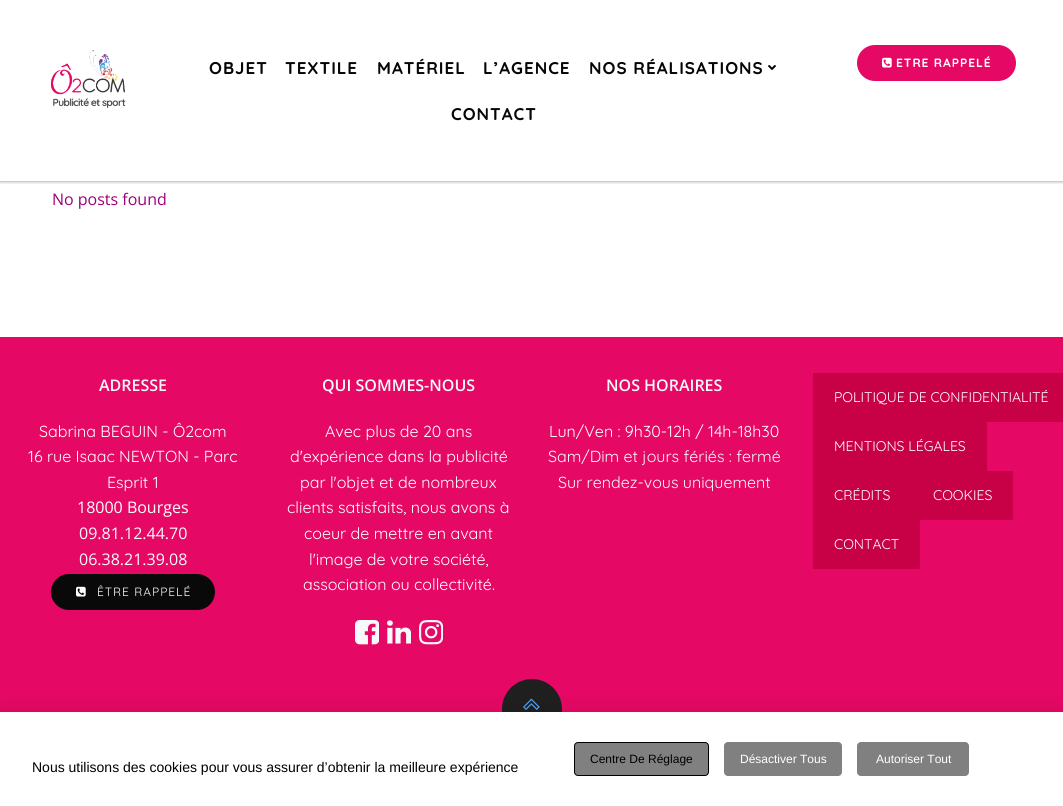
#include <cairo/cairo.h>
#include <math.h>
#include <stddef.h>

typedef struct { double x, y; const char *s; } line_t;
typedef struct { double x, y, w, h; unsigned color; } box_t;
static cairo_t *cr;

static void rgb(unsigned color)
{
	cairo_set_source_rgb(cr, (color >> 16) / 255.0, (color >> 8 & 255) / 255.0, (color & 255) / 255.0);
}

static void tracked(double x, double y, const char *s, double letter, double word)
{
	cairo_move_to(cr, x, y);
	while (*s) {
		char ch[5] = {0};
		int n = 0;
		do ch[n++] = *s++; while ((*s & 0xC0) == 0x80);
		cairo_show_text(cr, ch);
		cairo_rel_move_to(cr, letter + word * (*ch == ' '), 0);
	}
}

static void rrect(double x, double y, double w, double h, double r)
{
	cairo_new_sub_path(cr);
	cairo_arc(cr, x + w - r, y + h - r, r, 0, M_PI / 2);
	cairo_arc(cr, x + r, y + h - r, r, M_PI / 2, M_PI);
	cairo_arc(cr, x + r, y + r, r, M_PI, 1.5 * M_PI);
	cairo_arc(cr, x + w - r, y + r, r, 1.5 * M_PI, 2 * M_PI);
	cairo_close_path(cr);
}

static void soft_shadow(double x, double y, double w, double h, double r, double blur, double alpha)
{
	cairo_push_group_with_content(cr, CAIRO_CONTENT_ALPHA);
	cairo_set_operator(cr, CAIRO_OPERATOR_SOURCE);
	for (int i = 15; i >= -15 && fmin(w, h) + blur * i / 3 > 0; i -= 2) {
		double e = blur * i / 6;
		cairo_set_source_rgba(cr, 0, 0, 0, alpha * erfc((i - 1) / 8.5) / 2);
		rrect(x - e, y - e, w + 2 * e, h + 2 * e, fmax(0, fmin(r + e + blur * .6, fmin(w, h) / 2 + e)));
		cairo_fill(cr);
	}
	cairo_pattern_t *soft = cairo_pop_group(cr);
	cairo_mask(cr, soft);
	cairo_pattern_destroy(soft);
}

static void image(const char *path, double x, double y, double w, double h)
{
	cairo_surface_t *image = cairo_image_surface_create_from_png(path);
	cairo_save(cr);
	cairo_set_source_surface(cr, image, x, y);
	cairo_rectangle(cr, x, y, w, h);
	cairo_fill(cr);
	cairo_restore(cr);
	cairo_surface_destroy(image);
}

int main(void) {
	cairo_surface_t *surface = cairo_image_surface_create(CAIRO_FORMAT_RGB24, 1063, 806);
	cr = cairo_create(surface);
	cairo_font_options_t *options = cairo_font_options_create();
	cairo_font_options_set_hint_metrics(options, CAIRO_HINT_METRICS_OFF);
	cairo_font_options_set_hint_style(options, CAIRO_HINT_STYLE_NONE);
	cairo_set_font_options(cr, options);
	cairo_set_miter_limit(cr, 4);
	rgb(0xffffff);
	cairo_paint(cr);
	cairo_save(cr);
	cairo_rectangle(cr, 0, 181, 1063, 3);
	cairo_clip(cr);
	rgb(0x000000);
	soft_shadow(0, 0, 1063, 181, 0, 2, 0.5);
	cairo_restore(cr);
	image("img/1.png", 50, 50, 76, 58);
	image("img/2.png", 768, 65, 8, 5);
	rgb(0xe50864);
	rrect(857, 45, 159, 36, 18);
	cairo_fill(cr);
	image("img/3.png", 882, 57, 10, 11);
	cairo_rectangle(cr, 0, 337, 1063, 375);
	cairo_fill(cr);
	rgb(0x090909);
	rrect(50, 573, 166, 38, 19);
	cairo_fill_preserve(cr);
	rgb(0xe50864);
	cairo_stroke(cr);
	image("img/4.png", 76, 586, 10, 11);
	image("img/5.png", 355, 620, 24, 25);
	image("img/6.png", 387, 620, 24, 24);
	image("img/7.png", 419, 620, 24, 25);
	{
		static const box_t items[] = {
			{813, 373, 250, 49, 0xc80045},
			{813, 422, 174, 49, 0xc80045},
			{813, 471, 200, 49, 0xc80045},
			{813, 520, 107, 49, 0xc80045},
		};
		for (size_t i = 0; i < sizeof items / sizeof *items; i++) {
			rgb(items[i].color);
			cairo_rectangle(cr, items[i].x, items[i].y, items[i].w, items[i].h);
			cairo_fill(cr);
		}
	}
	rgb(0x1f1f1f);
	cairo_new_path(cr);
	cairo_move_to(cr, 532, 679);
	cairo_curve_to(cr, 548.5, 679, 562, 692.5, 562, 709);
	cairo_line_to(cr, 562, 714);
	cairo_line_to(cr, 502, 714);
	cairo_line_to(cr, 502, 709);
	cairo_curve_to(cr, 502, 692.5, 515.5, 679, 532, 679);
	cairo_close_path(cr);
	cairo_fill(cr);
	image("img/8.png", 523, 698, 17, 12);
	rgb(0x000000);
	soft_shadow(0, 708, 1063, 94, 0, 9.5, 0.07);
	rgb(0xffffff);
	cairo_rectangle(cr, 0, 712, 1063, 94);
	cairo_fill(cr);
	rgb(0x808080);
	rrect(574.5, 742.5, 134, 33, 3.5);
	cairo_fill_preserve(cr);
	rgb(0x000000);
	cairo_set_line_width(cr, 1);
	cairo_stroke(cr);
	rgb(0x808080);
	rrect(724, 742, 118, 34, 4);
	cairo_fill(cr);
	rrect(857, 742, 112, 34, 4);
	cairo_fill(cr);
	cairo_select_font_face(cr, "Quicksand", CAIRO_FONT_SLANT_NORMAL, CAIRO_FONT_WEIGHT_BOLD);
	cairo_set_font_size(cr, 17);
	rgb(0x060606);
	{
		static const line_t items[] = {
			{209, 74, "OBJET"},
			{285, 74, "TEXTILE"},
			{377, 74, "MATÉRIEL"},
			{483, 74, "L’AGENCE"},
			{589, 74, "NOS RÉALISATIONS"},
			{451, 120, "CONTACT"},
		};
		for (size_t i = 0; i < sizeof items / sizeof *items; i++) {
			tracked(items[i].x, items[i].y, items[i].s, 1, 0);
		}
	}
	cairo_set_font_size(cr, 12);
	rgb(0xffffff);
	tracked(896, 67, "ETRE RAPPELÉ", 1, 0);
	cairo_select_font_face(cr, "Open Sans", CAIRO_FONT_SLANT_NORMAL, CAIRO_FONT_WEIGHT_NORMAL);
	cairo_set_font_size(cr, 16);
	rgb(0x9c0079);
	cairo_move_to(cr, 52, 205);
	cairo_show_text(cr, "No posts found");
	cairo_select_font_face(cr, "Open Sans SemiBold", CAIRO_FONT_SLANT_NORMAL, CAIRO_FONT_WEIGHT_NORMAL);
	rgb(0xf6f8fa);
	cairo_move_to(cr, 99, 391);
	cairo_show_text(cr, "ADRESSE");
	cairo_select_font_face(cr, "Quicksand", CAIRO_FONT_SLANT_NORMAL, CAIRO_FONT_WEIGHT_NORMAL);
	rgb(0xffffff);
	{
		static const line_t items[] = {
			{39, 437, "Sabrina BEGUIN - Ô2com"},
			{28, 462, "16 rue Isaac NEWTON - Parc"},
			{107, 488, "Esprit 1"},
		};
		for (size_t i = 0; i < sizeof items / sizeof *items; i++) {
			cairo_move_to(cr, items[i].x, items[i].y);
			cairo_show_text(cr, items[i].s);
		}
	}
	cairo_select_font_face(cr, "Open Sans", CAIRO_FONT_SLANT_NORMAL, CAIRO_FONT_WEIGHT_NORMAL);
	cairo_move_to(cr, 77, 513);
	cairo_show_text(cr, "18000 Bourges");
	rgb(0xf6f8fa);
	cairo_move_to(cr, 79, 539);
	cairo_show_text(cr, "09.81.12.44.70");
	cairo_move_to(cr, 79, 565);
	cairo_show_text(cr, "06.38.21.39.08");
	cairo_select_font_face(cr, "Quicksand", CAIRO_FONT_SLANT_NORMAL, CAIRO_FONT_WEIGHT_NORMAL);
	cairo_set_font_size(cr, 12);
	rgb(0xffffff);
	tracked(97, 596, "ÊTRE RAPPELÉ", 1, 0);
	cairo_select_font_face(cr, "Open Sans SemiBold", CAIRO_FONT_SLANT_NORMAL, CAIRO_FONT_WEIGHT_NORMAL);
	cairo_set_font_size(cr, 16);
	rgb(0xf6f8fa);
	cairo_move_to(cr, 322, 391);
	cairo_show_text(cr, "QUI SOMMES-NOUS");
	cairo_select_font_face(cr, "Quicksand", CAIRO_FONT_SLANT_NORMAL, CAIRO_FONT_WEIGHT_NORMAL);
	rgb(0xffffff);
	{
		static const line_t items[] = {
			{325, 437, "Avec plus de 20 ans"},
			{290, 462, "d'expérience dans la publicité"},
			{300, 488, "par l'objet et de nombreux"},
			{287, 513, "clients satisfaits, nous avons à"},
			{304, 539, "coeur de mettre en avant"},
			{309, 565, "l'image de votre société,"},
			{303, 590, "association ou collectivité."},
		};
		for (size_t i = 0; i < sizeof items / sizeof *items; i++) {
			cairo_move_to(cr, items[i].x, items[i].y);
			cairo_show_text(cr, items[i].s);
		}
	}
	cairo_select_font_face(cr, "Open Sans SemiBold", CAIRO_FONT_SLANT_NORMAL, CAIRO_FONT_WEIGHT_NORMAL);
	rgb(0xf6f8fa);
	cairo_move_to(cr, 606, 391);
	cairo_show_text(cr, "NOS HORAIRES");
	cairo_select_font_face(cr, "Quicksand", CAIRO_FONT_SLANT_NORMAL, CAIRO_FONT_WEIGHT_NORMAL);
	rgb(0xffffff);
	cairo_move_to(cr, 549, 437);
	cairo_show_text(cr, "Lun/Ven : 9h30-12h / 14h-18h30");
	rgb(0xf6f8fa);
	cairo_move_to(cr, 548, 462);
	cairo_show_text(cr, "Sam/Dim et jours fériés : fermé");
	cairo_move_to(cr, 558, 488);
	cairo_show_text(cr, "Sur rendez-vous uniquement");
	cairo_set_font_size(cr, 14);
	rgb(0xffffff);
	{
		static const line_t items[] = {
			{834, 402, "POLITIQUE DE CONFIDENTIALITÉ"},
			{834, 451, "MENTIONS LÉGALES"},
			{834, 500, "CRÉDITS"},
			{933, 500, "COOKIES"},
			{834, 549, "CONTACT"},
		};
		for (size_t i = 0; i < sizeof items / sizeof *items; i++) {
			cairo_move_to(cr, items[i].x, items[i].y);
			cairo_show_text(cr, items[i].s);
		}
	}
	cairo_select_font_face(cr, "Liberation Sans", CAIRO_FONT_SLANT_NORMAL, CAIRO_FONT_WEIGHT_NORMAL);
	rgb(0x000000);
	cairo_move_to(cr, 32, 772);
	cairo_show_text(cr, "Nous utilisons des cookies pour vous assurer d’obtenir la meilleure expérience");
	cairo_set_font_size(cr, 12);
	cairo_move_to(cr, 590, 763);
	cairo_show_text(cr, "Centre De Réglage");
	rgb(0xffffff);
	cairo_move_to(cr, 740, 763);
	cairo_show_text(cr, "Désactiver Tous");
	cairo_move_to(cr, 876, 763);
	cairo_show_text(cr, "Autoriser Tout");
	cairo_surface_write_to_png(surface, "page.png");
	cairo_font_options_destroy(options);
	cairo_destroy(cr);
	cairo_surface_destroy(surface);
	return 0;
}
